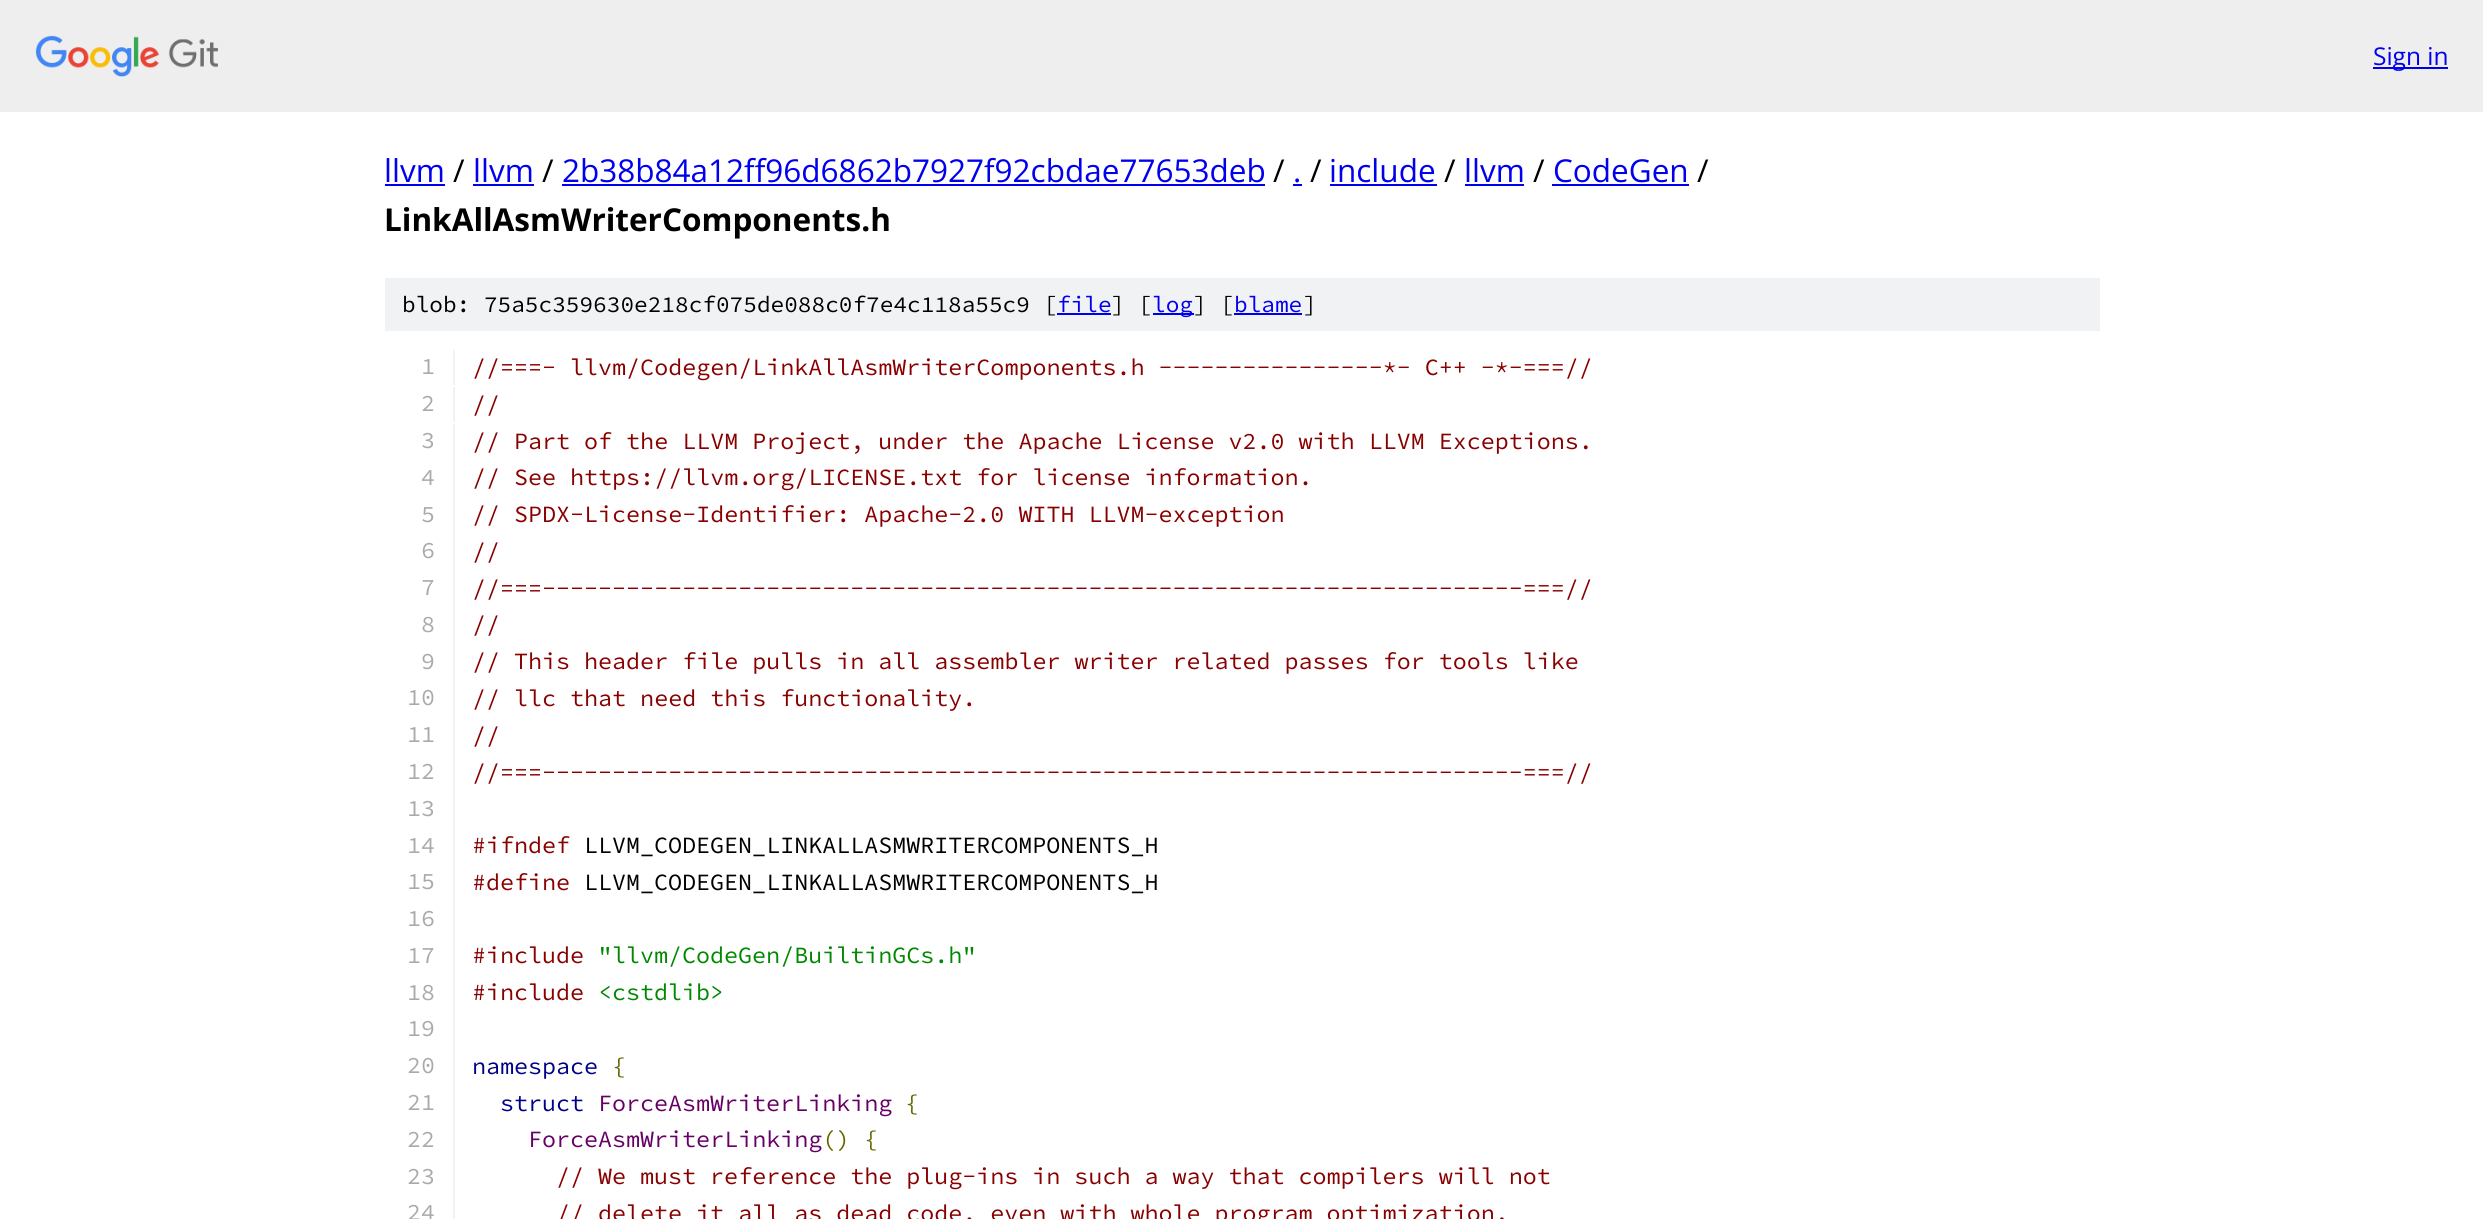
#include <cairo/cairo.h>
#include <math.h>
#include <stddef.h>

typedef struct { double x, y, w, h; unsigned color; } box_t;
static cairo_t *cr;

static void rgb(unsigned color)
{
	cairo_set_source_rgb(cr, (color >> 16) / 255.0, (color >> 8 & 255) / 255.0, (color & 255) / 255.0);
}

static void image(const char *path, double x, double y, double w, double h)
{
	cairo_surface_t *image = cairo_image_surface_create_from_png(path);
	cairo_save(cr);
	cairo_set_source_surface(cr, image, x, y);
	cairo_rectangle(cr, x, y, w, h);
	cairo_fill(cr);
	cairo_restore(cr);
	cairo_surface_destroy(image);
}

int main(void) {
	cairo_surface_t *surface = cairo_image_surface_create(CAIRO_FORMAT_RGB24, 2483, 1219);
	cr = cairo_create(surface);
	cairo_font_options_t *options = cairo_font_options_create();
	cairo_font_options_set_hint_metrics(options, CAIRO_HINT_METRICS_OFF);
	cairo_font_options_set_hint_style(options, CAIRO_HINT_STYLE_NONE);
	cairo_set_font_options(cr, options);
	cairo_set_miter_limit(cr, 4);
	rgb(0xffffff);
	cairo_paint(cr);
	rgb(0xeeeeee);
	cairo_rectangle(cr, 0, 0, 2483, 112);
	cairo_fill(cr);
	image("img/1.png", 35, 35, 183, 42);
	{
		static const box_t items[] = {
			{2373, 67, 75, 2, 0x0000ee},
			{385, 184, 60, 2, 0x0000ee},
			{473, 184, 61, 2, 0x0000ee},
			{562, 184, 703, 2, 0x0000ee},
			{1293, 184, 9, 2, 0x0000ee},
			{1330, 184, 107, 2, 0x0000ee},
			{1465, 184, 59, 2, 0x0000ee},
			{1552, 184, 137, 2, 0x0000ee},
			{385, 278, 1715, 53, 0xf1f2f3},
			{1057, 313, 54, 2, 0x0000ee},
			{1153, 313, 41, 2, 0x0000ee},
			{1234, 313, 68, 2, 0x0000ee},
			{453, 350, 2, 35, 0xf1f2f3},
			{453, 387, 2, 35, 0xf1f2f3},
			{453, 424, 2, 795, 0xf1f2f3},
		};
		for (size_t i = 0; i < sizeof items / sizeof *items; i++) {
			rgb(items[i].color);
			cairo_rectangle(cr, items[i].x, items[i].y, items[i].w, items[i].h);
			cairo_fill(cr);
		}
	}
	cairo_select_font_face(cr, "Open Sans", CAIRO_FONT_SLANT_NORMAL, CAIRO_FONT_WEIGHT_NORMAL);
	cairo_set_font_size(cr, 24.5);
	rgb(0x0000ee);
	cairo_move_to(cr, 2373, 65);
	cairo_show_text(cr, "Sign in");
	cairo_set_font_size(cr, 31.5);
	cairo_move_to(cr, 384, 182);
	cairo_show_text(cr, "llvm");
	rgb(0x000000);
	cairo_move_to(cr, 453, 182);
	cairo_show_text(cr, "/");
	rgb(0x0000ee);
	cairo_move_to(cr, 473, 182);
	cairo_show_text(cr, "llvm");
	rgb(0x000000);
	cairo_move_to(cr, 542, 182);
	cairo_show_text(cr, "/");
	rgb(0x0000ee);
	cairo_move_to(cr, 562, 182);
	cairo_show_text(cr, "2b38b84a12ff96d6862b7927f92cbdae77653deb");
	rgb(0x000000);
	cairo_move_to(cr, 1273, 182);
	cairo_show_text(cr, "/");
	rgb(0x0000ee);
	cairo_move_to(cr, 1293, 182);
	cairo_show_text(cr, ".");
	rgb(0x000000);
	cairo_move_to(cr, 1310, 182);
	cairo_show_text(cr, "/");
	rgb(0x0000ee);
	cairo_move_to(cr, 1329, 182);
	cairo_show_text(cr, "include");
	rgb(0x000000);
	cairo_move_to(cr, 1444, 182);
	cairo_show_text(cr, "/");
	rgb(0x0000ee);
	cairo_move_to(cr, 1464, 182);
	cairo_show_text(cr, "llvm");
	rgb(0x000000);
	cairo_move_to(cr, 1533, 182);
	cairo_show_text(cr, "/");
	rgb(0x0000ee);
	cairo_move_to(cr, 1553, 182);
	cairo_show_text(cr, "CodeGen");
	rgb(0x000000);
	cairo_move_to(cr, 1697, 182);
	cairo_show_text(cr, "/");
	cairo_select_font_face(cr, "Open Sans", CAIRO_FONT_SLANT_NORMAL, CAIRO_FONT_WEIGHT_BOLD);
	cairo_move_to(cr, 384, 231);
	cairo_show_text(cr, "LinkAllAsmWriterComponents.h");
	cairo_select_font_face(cr, "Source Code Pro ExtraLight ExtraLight", CAIRO_FONT_SLANT_NORMAL, CAIRO_FONT_WEIGHT_NORMAL);
	cairo_set_font_size(cr, 22.75);
	cairo_move_to(cr, 402, 312);
	cairo_show_text(cr, "blob: 75a5c359630e218cf075de088c0f7e4c118a55c9 [");
	rgb(0x0000ee);
	cairo_move_to(cr, 1057, 312);
	cairo_show_text(cr, "file");
	rgb(0x000000);
	cairo_move_to(cr, 1111, 312);
	cairo_show_text(cr, "] [");
	rgb(0x0000ee);
	cairo_move_to(cr, 1152, 312);
	cairo_show_text(cr, "log");
	rgb(0x000000);
	cairo_move_to(cr, 1193, 312);
	cairo_show_text(cr, "] [");
	rgb(0x0000ee);
	cairo_move_to(cr, 1234, 312);
	cairo_show_text(cr, "blame");
	rgb(0x000000);
	cairo_move_to(cr, 1303, 312);
	cairo_show_text(cr, "]");
	cairo_set_font_size(cr, 23.35);
	rgb(0xaaaaaa);
	cairo_move_to(cr, 421, 374);
	cairo_show_text(cr, "1");
	rgb(0x880000);
	cairo_move_to(cr, 472, 375);
	cairo_show_text(cr, "//===- llvm/Codegen/LinkAllAsmWriterComponents.h ----------------*- C++ -*-===//");
	rgb(0xaaaaaa);
	cairo_move_to(cr, 421, 411);
	cairo_show_text(cr, "2");
	rgb(0x880000);
	cairo_move_to(cr, 472, 412);
	cairo_show_text(cr, "//");
	rgb(0xaaaaaa);
	cairo_move_to(cr, 421, 448);
	cairo_show_text(cr, "3");
	rgb(0x880000);
	cairo_move_to(cr, 472, 449);
	cairo_show_text(cr, "// Part of the LLVM Project, under the Apache License v2.0 with LLVM Exceptions.");
	rgb(0xaaaaaa);
	cairo_move_to(cr, 421, 485);
	cairo_show_text(cr, "4");
	rgb(0x880000);
	cairo_move_to(cr, 472, 485);
	cairo_show_text(cr, "// See https://llvm.org/LICENSE.txt for license information.");
	rgb(0xaaaaaa);
	cairo_move_to(cr, 421, 522);
	cairo_show_text(cr, "5");
	rgb(0x880000);
	cairo_move_to(cr, 472, 522);
	cairo_show_text(cr, "// SPDX-License-Identifier: Apache-2.0 WITH LLVM-exception");
	rgb(0xaaaaaa);
	cairo_move_to(cr, 421, 558);
	cairo_show_text(cr, "6");
	rgb(0x880000);
	cairo_move_to(cr, 472, 559);
	cairo_show_text(cr, "//");
	rgb(0xaaaaaa);
	cairo_move_to(cr, 421, 595);
	cairo_show_text(cr, "7");
	rgb(0x880000);
	cairo_move_to(cr, 472, 596);
	cairo_show_text(cr, "//===----------------------------------------------------------------------===//");
	rgb(0xaaaaaa);
	cairo_move_to(cr, 421, 632);
	cairo_show_text(cr, "8");
	rgb(0x880000);
	cairo_move_to(cr, 472, 632);
	cairo_show_text(cr, "//");
	rgb(0xaaaaaa);
	cairo_move_to(cr, 421, 669);
	cairo_show_text(cr, "9");
	rgb(0x880000);
	cairo_move_to(cr, 472, 669);
	cairo_show_text(cr, "// This header file pulls in all assembler writer related passes for tools like");
	rgb(0xaaaaaa);
	cairo_move_to(cr, 407, 705);
	cairo_show_text(cr, "10");
	rgb(0x880000);
	cairo_move_to(cr, 472, 706);
	cairo_show_text(cr, "// llc that need this functionality.");
	rgb(0xaaaaaa);
	cairo_move_to(cr, 407, 742);
	cairo_show_text(cr, "11");
	rgb(0x880000);
	cairo_move_to(cr, 472, 743);
	cairo_show_text(cr, "//");
	rgb(0xaaaaaa);
	cairo_move_to(cr, 407, 779);
	cairo_show_text(cr, "12");
	rgb(0x880000);
	cairo_move_to(cr, 472, 780);
	cairo_show_text(cr, "//===----------------------------------------------------------------------===//");
	rgb(0xaaaaaa);
	cairo_move_to(cr, 407, 816);
	cairo_show_text(cr, "13");
	cairo_move_to(cr, 407, 853);
	cairo_show_text(cr, "14");
	rgb(0x880000);
	cairo_move_to(cr, 472, 853);
	cairo_show_text(cr, "#ifndef");
	rgb(0x000000);
	cairo_move_to(cr, 584, 853);
	cairo_show_text(cr, "LLVM_CODEGEN_LINKALLASMWRITERCOMPONENTS_H");
	rgb(0xaaaaaa);
	cairo_move_to(cr, 407, 889);
	cairo_show_text(cr, "15");
	rgb(0x880000);
	cairo_move_to(cr, 472, 890);
	cairo_show_text(cr, "#define");
	rgb(0x000000);
	cairo_move_to(cr, 584, 890);
	cairo_show_text(cr, "LLVM_CODEGEN_LINKALLASMWRITERCOMPONENTS_H");
	rgb(0xaaaaaa);
	cairo_move_to(cr, 407, 926);
	cairo_show_text(cr, "16");
	cairo_move_to(cr, 407, 963);
	cairo_show_text(cr, "17");
	rgb(0x880000);
	cairo_move_to(cr, 472, 963);
	cairo_show_text(cr, "#include");
	rgb(0x008800);
	cairo_move_to(cr, 598, 963);
	cairo_show_text(cr, "\"llvm/CodeGen/BuiltinGCs.h\"");
	rgb(0xaaaaaa);
	cairo_move_to(cr, 407, 1000);
	cairo_show_text(cr, "18");
	rgb(0x880000);
	cairo_move_to(cr, 472, 1000);
	cairo_show_text(cr, "#include");
	rgb(0x008800);
	cairo_move_to(cr, 598, 1000);
	cairo_show_text(cr, "<cstdlib>");
	rgb(0xaaaaaa);
	cairo_move_to(cr, 407, 1036);
	cairo_show_text(cr, "19");
	cairo_move_to(cr, 407, 1073);
	cairo_show_text(cr, "20");
	rgb(0x000088);
	cairo_move_to(cr, 472, 1074);
	cairo_show_text(cr, "namespace");
	rgb(0x666600);
	cairo_move_to(cr, 612, 1074);
	cairo_show_text(cr, "{");
	rgb(0xaaaaaa);
	cairo_move_to(cr, 407, 1110);
	cairo_show_text(cr, "21");
	rgb(0x000088);
	cairo_move_to(cr, 500, 1111);
	cairo_show_text(cr, "struct");
	rgb(0x660066);
	cairo_move_to(cr, 598, 1111);
	cairo_show_text(cr, "ForceAsmWriterLinking");
	rgb(0x666600);
	cairo_move_to(cr, 905, 1111);
	cairo_show_text(cr, "{");
	rgb(0xaaaaaa);
	cairo_move_to(cr, 407, 1147);
	cairo_show_text(cr, "22");
	rgb(0x660066);
	cairo_move_to(cr, 528, 1147);
	cairo_show_text(cr, "ForceAsmWriterLinking");
	rgb(0x666600);
	cairo_move_to(cr, 822, 1147);
	cairo_show_text(cr, "() {");
	rgb(0xaaaaaa);
	cairo_move_to(cr, 407, 1184);
	cairo_show_text(cr, "23");
	rgb(0x880000);
	cairo_move_to(cr, 556, 1184);
	cairo_show_text(cr, "// We must reference the plug-ins in such a way that compilers will not");
	rgb(0xaaaaaa);
	cairo_move_to(cr, 407, 1220);
	cairo_show_text(cr, "24");
	rgb(0x880000);
	cairo_move_to(cr, 556, 1221);
	cairo_show_text(cr, "// delete it all as dead code, even with whole program optimization,");
	cairo_surface_write_to_png(surface, "page.png");
	cairo_font_options_destroy(options);
	cairo_destroy(cr);
	cairo_surface_destroy(surface);
	return 0;
}
